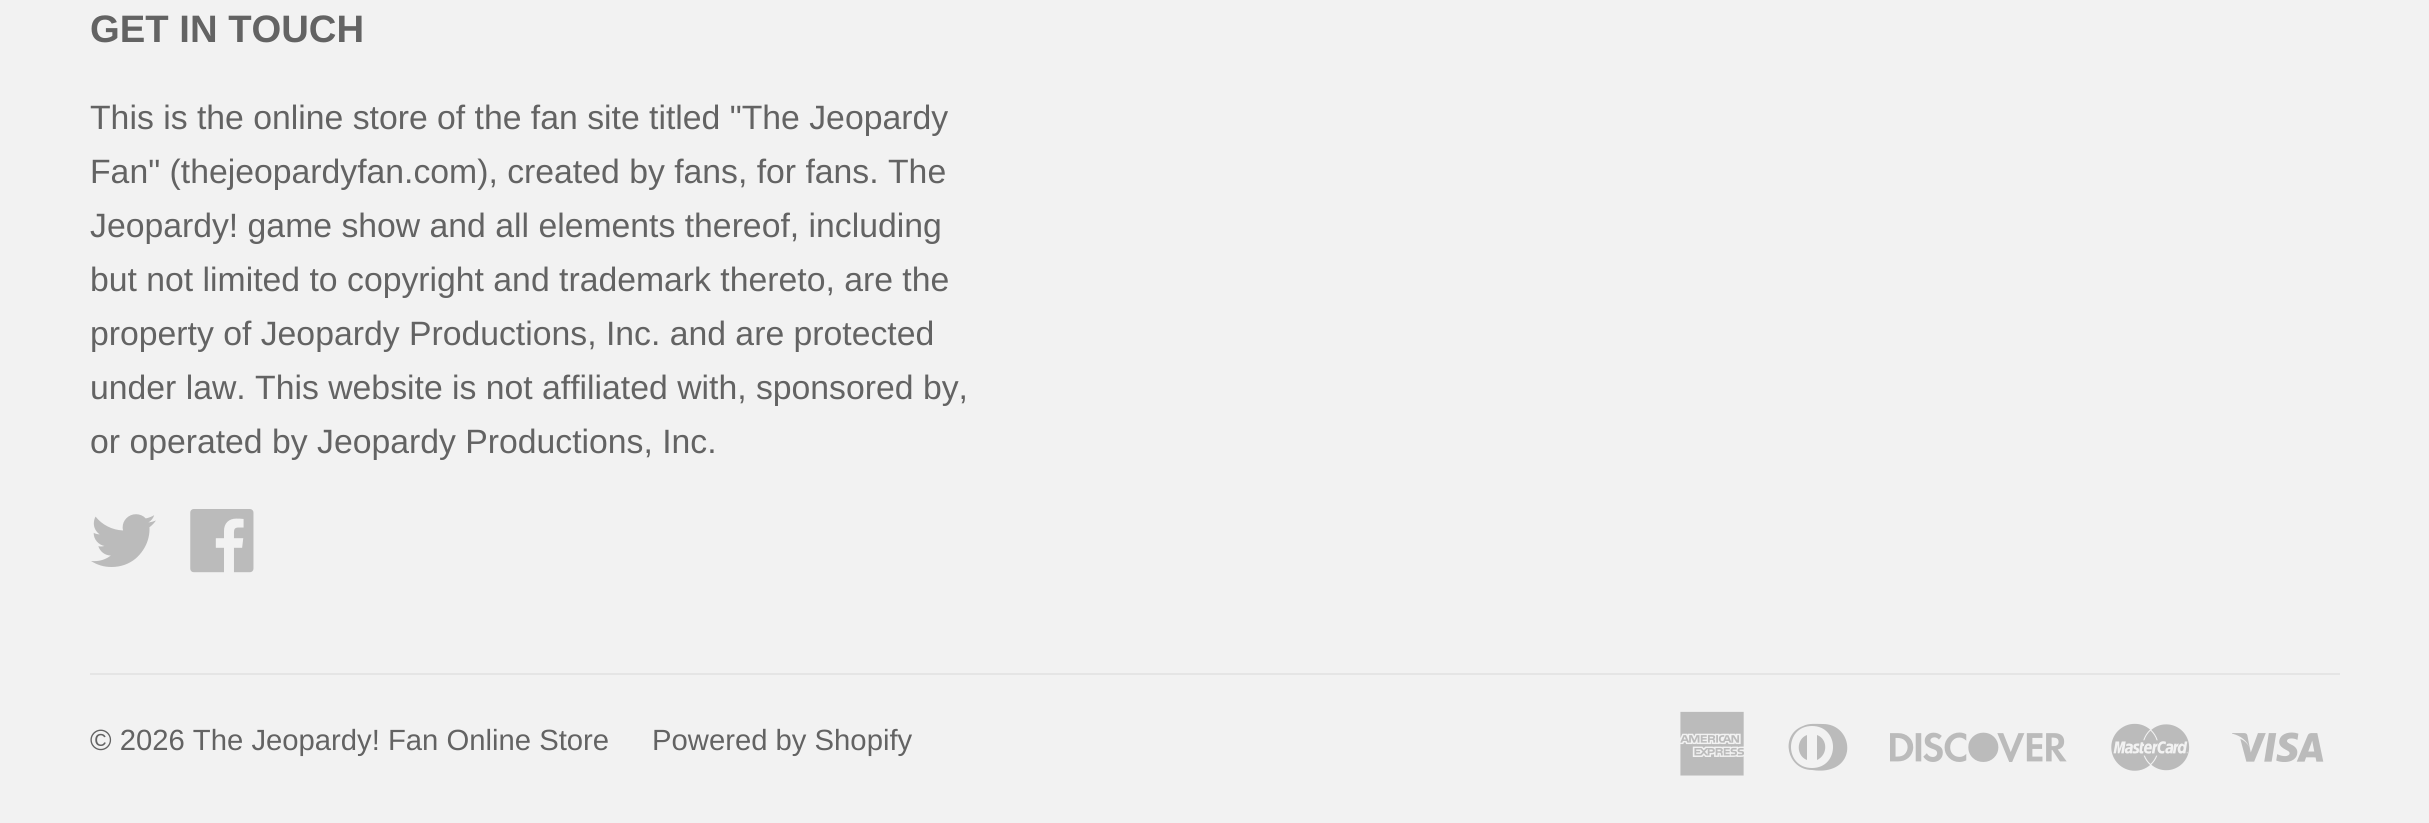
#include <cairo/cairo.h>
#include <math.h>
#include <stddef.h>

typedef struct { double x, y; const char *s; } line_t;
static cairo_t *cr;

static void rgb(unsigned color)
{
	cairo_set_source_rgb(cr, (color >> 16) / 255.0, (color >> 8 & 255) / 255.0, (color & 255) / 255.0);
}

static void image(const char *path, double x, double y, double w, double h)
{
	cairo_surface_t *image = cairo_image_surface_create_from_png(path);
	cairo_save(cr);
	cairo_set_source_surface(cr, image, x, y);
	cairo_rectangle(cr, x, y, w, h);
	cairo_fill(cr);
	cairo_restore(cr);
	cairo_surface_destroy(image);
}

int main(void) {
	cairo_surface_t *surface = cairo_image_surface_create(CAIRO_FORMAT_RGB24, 2429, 823);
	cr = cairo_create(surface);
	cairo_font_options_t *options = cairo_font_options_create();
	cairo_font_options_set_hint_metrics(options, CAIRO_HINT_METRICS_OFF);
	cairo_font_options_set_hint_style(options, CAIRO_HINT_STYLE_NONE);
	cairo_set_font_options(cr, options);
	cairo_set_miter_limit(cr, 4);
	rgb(0xf2f2f2);
	cairo_paint(cr);
	image("img/1.png", 91, 514, 65, 53);
	image("img/2.png", 190, 509, 64, 64);
	rgb(0xe5e5e5);
	cairo_rectangle(cr, 90, 673, 2250, 2);
	cairo_fill(cr);
	image("img/3.png", 1680, 711, 64, 65);
	rgb(0xbbbbbb);
	cairo_new_path(cr);
	cairo_move_to(cr, 1823, 724);
	cairo_curve_to(cr, 1850, 724, 1857, 761, 1831, 769);
	cairo_curve_to(cr, 1825, 771, 1818, 771, 1812, 770);
	cairo_curve_to(cr, 1787, 770, 1779, 735, 1803, 726);
	cairo_curve_to(cr, 1809, 723, 1816, 724, 1823, 724);
	cairo_close_path(cr);
	cairo_move_to(cr, 1812, 768);
	cairo_curve_to(cr, 1840, 768, 1840, 726, 1812, 726);
	cairo_curve_to(cr, 1784, 726, 1784, 768, 1812, 768);
	cairo_close_path(cr);
	cairo_move_to(cr, 1807, 760);
	cairo_curve_to(cr, 1796, 756, 1796, 739, 1807, 735);
	cairo_close_path(cr);
	cairo_move_to(cr, 1817, 735);
	cairo_curve_to(cr, 1828, 739, 1828, 755, 1817, 760);
	cairo_close_path(cr);
	cairo_fill(cr);
	image("img/4.png", 1890, 732, 177, 30);
	image("img/5.png", 2111, 723, 79, 48);
	image("img/6.png", 2232, 732, 92, 30);
	cairo_select_font_face(cr, "Liberation Sans", CAIRO_FONT_SLANT_NORMAL, CAIRO_FONT_WEIGHT_BOLD);
	cairo_set_font_size(cr, 38.25);
	rgb(0x636363);
	cairo_move_to(cr, 90, 42);
	cairo_show_text(cr, "GET IN TOUCH");
	cairo_select_font_face(cr, "Liberation Sans", CAIRO_FONT_SLANT_NORMAL, CAIRO_FONT_WEIGHT_NORMAL);
	cairo_set_font_size(cr, 33.75);
	{
		static const line_t items[] = {
			{90, 129, "This is the online store of the fan site titled \"The Jeopardy"},
			{90, 183, "Fan\" (thejeopardyfan.com), created by fans, for fans. The"},
			{90, 237, "Jeopardy! game show and all elements thereof, including"},
			{90, 291, "but not limited to copyright and trademark thereto, are the"},
			{90, 345, "property of Jeopardy Productions, Inc. and are protected"},
			{90, 399, "under law. This website is not affiliated with, sponsored by,"},
			{90, 453, "or operated by Jeopardy Productions, Inc."},
		};
		for (size_t i = 0; i < sizeof items / sizeof *items; i++) {
			cairo_move_to(cr, items[i].x, items[i].y);
			cairo_show_text(cr, items[i].s);
		}
	}
	cairo_set_font_size(cr, 29.25);
	cairo_move_to(cr, 90, 750);
	cairo_show_text(cr, "© 2026 The Jeopardy! Fan Online Store");
	cairo_move_to(cr, 652, 750);
	cairo_show_text(cr, "Powered by Shopify");
	cairo_surface_write_to_png(surface, "page.png");
	cairo_font_options_destroy(options);
	cairo_destroy(cr);
	cairo_surface_destroy(surface);
	return 0;
}
